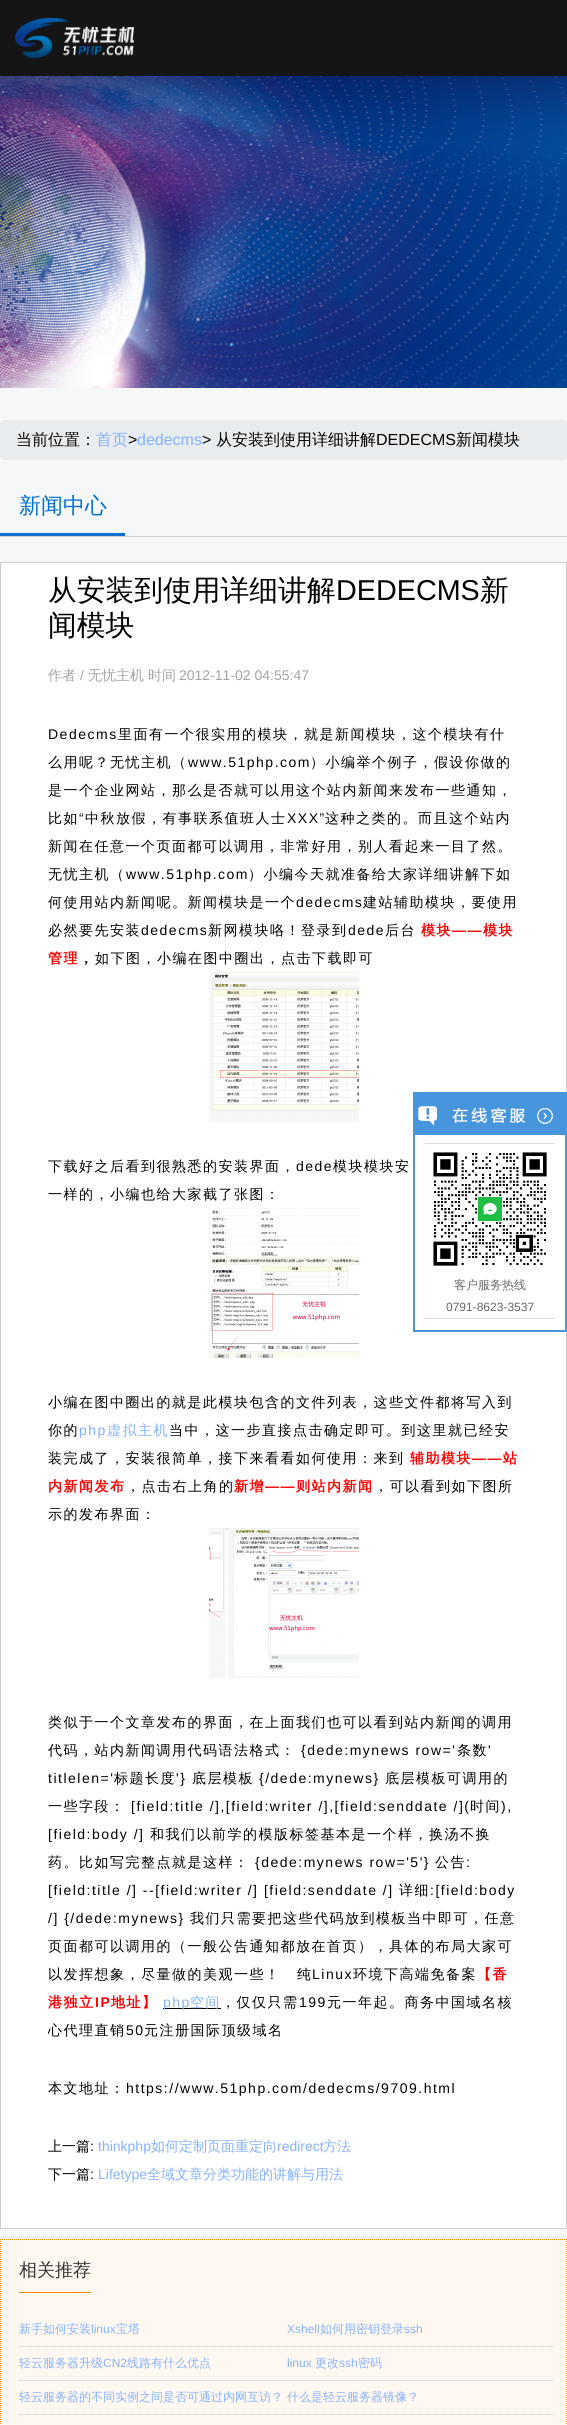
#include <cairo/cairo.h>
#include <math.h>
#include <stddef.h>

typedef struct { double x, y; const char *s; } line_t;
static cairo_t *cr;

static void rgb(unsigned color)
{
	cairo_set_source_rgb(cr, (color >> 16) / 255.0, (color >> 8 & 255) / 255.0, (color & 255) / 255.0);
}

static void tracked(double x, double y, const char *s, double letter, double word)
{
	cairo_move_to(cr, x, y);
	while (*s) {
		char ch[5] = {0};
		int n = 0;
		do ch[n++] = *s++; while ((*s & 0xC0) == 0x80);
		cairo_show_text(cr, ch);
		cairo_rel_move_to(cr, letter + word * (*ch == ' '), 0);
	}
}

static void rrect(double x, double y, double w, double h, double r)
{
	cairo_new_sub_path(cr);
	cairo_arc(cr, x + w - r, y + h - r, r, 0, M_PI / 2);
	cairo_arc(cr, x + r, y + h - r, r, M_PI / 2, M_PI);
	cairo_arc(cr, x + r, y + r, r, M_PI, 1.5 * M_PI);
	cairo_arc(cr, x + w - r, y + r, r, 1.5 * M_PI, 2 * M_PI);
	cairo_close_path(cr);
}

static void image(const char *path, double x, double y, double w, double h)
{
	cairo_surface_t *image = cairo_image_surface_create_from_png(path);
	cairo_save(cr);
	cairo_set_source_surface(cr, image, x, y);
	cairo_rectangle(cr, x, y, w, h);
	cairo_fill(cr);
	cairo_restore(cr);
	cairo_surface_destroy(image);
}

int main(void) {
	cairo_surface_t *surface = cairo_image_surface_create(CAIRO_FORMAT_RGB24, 567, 2425);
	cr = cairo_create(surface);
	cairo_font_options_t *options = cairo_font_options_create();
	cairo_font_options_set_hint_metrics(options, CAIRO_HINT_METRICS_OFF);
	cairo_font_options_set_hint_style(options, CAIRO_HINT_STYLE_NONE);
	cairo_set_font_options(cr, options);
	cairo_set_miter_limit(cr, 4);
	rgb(0xf5f7f8);
	cairo_paint(cr);
	rgb(0x151515);
	cairo_rectangle(cr, 0, 0, 567, 76);
	cairo_fill(cr);
	image("img/1.png", 15, 18, 119, 40);
	image("img/2.png", 0, 76, 567, 312);
	rgb(0xe9ecef);
	rrect(0, 420, 567, 40, 4);
	cairo_fill(cr);
	rgb(0xccd0d4);
	cairo_rectangle(cr, 0, 536, 567, 1);
	cairo_fill(cr);
	rgb(0x0270cf);
	cairo_rectangle(cr, 0, 533, 125, 3);
	cairo_fill(cr);
	rgb(0xffffff);
	cairo_rectangle(cr, 0.5, 562.5, 566, 1666);
	cairo_fill_preserve(cr);
	rgb(0xd0cece);
	cairo_set_line_width(cr, 1);
	cairo_stroke(cr);
	image("img/3.png", 209, 972, 150, 150);
	image("img/4.png", 209, 1208, 150, 150);
	image("img/5.png", 209, 1528, 150, 150);
	rgb(0x000000);
	cairo_rectangle(cr, 163, 2008, 58, 1);
	cairo_fill(cr);
	rgb(0xfff8f0);
	cairo_rectangle(cr, 0, 2239, 567, 186);
	cairo_fill(cr);
	cairo_new_path(cr);
	cairo_move_to(cr, 0, 2239.5);
	cairo_line_to(cr, 567, 2239.5);
	rgb(0xff8800);
	cairo_set_dash(cr, (double[]){1, 1}, 2, 0);
	cairo_stroke(cr);
	cairo_new_path(cr);
	cairo_move_to(cr, 566.5, 2239);
	cairo_line_to(cr, 566.5, 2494);
	cairo_stroke(cr);
	cairo_new_path(cr);
	cairo_move_to(cr, 0.5, 2239);
	cairo_line_to(cr, 0.5, 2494);
	cairo_stroke(cr);
	cairo_rectangle(cr, 19, 2292, 72, 1);
	cairo_fill(cr);
	cairo_new_path(cr);
	cairo_move_to(cr, 19, 2346.5);
	cairo_line_to(cr, 287, 2346.5);
	rgb(0xcccccc);
	cairo_stroke(cr);
	cairo_new_path(cr);
	cairo_move_to(cr, 287, 2346.5);
	cairo_line_to(cr, 555, 2346.5);
	cairo_stroke(cr);
	cairo_new_path(cr);
	cairo_move_to(cr, 19, 2380.5);
	cairo_line_to(cr, 287, 2380.5);
	cairo_stroke(cr);
	cairo_new_path(cr);
	cairo_move_to(cr, 287, 2380.5);
	cairo_line_to(cr, 555, 2380.5);
	cairo_stroke(cr);
	cairo_new_path(cr);
	cairo_move_to(cr, 19, 2414.5);
	cairo_line_to(cr, 287, 2414.5);
	cairo_stroke(cr);
	cairo_new_path(cr);
	cairo_move_to(cr, 287, 2414.5);
	cairo_line_to(cr, 555, 2414.5);
	cairo_stroke(cr);
	image("img/6.png", 413, 1092, 154, 46);
	image("img/7.png", 537, 1108, 16, 16);
	image("img/8.png", 413, 1138, 154, 186);
	rgb(0xdddddd);
	cairo_rectangle(cr, 425, 1143, 130, 1);
	cairo_fill(cr);
	cairo_rectangle(cr, 425, 1318, 130, 1);
	cairo_fill(cr);
	image("img/9.png", 433, 1152, 114, 114);
	image("img/10.png", 413, 1324, 154, 8);
	cairo_select_font_face(cr, "WenQuanYi Zen Hei Medium", CAIRO_FONT_SLANT_NORMAL, CAIRO_FONT_WEIGHT_NORMAL);
	cairo_set_font_size(cr, 16);
	rgb(0x000000);
	cairo_move_to(cr, 16, 445);
	cairo_show_text(cr, "当前位置：");
	rgb(0x85b2fe);
	cairo_move_to(cr, 96, 445);
	cairo_show_text(cr, "首页");
	cairo_select_font_face(cr, "Liberation Sans", CAIRO_FONT_SLANT_NORMAL, CAIRO_FONT_WEIGHT_NORMAL);
	rgb(0x000000);
	cairo_move_to(cr, 128, 445);
	cairo_show_text(cr, ">");
	rgb(0x85b2fe);
	cairo_move_to(cr, 137, 445);
	cairo_show_text(cr, "dedecms");
	rgb(0x000000);
	cairo_move_to(cr, 202, 445);
	cairo_show_text(cr, ">");
	cairo_select_font_face(cr, "WenQuanYi Zen Hei Medium", CAIRO_FONT_SLANT_NORMAL, CAIRO_FONT_WEIGHT_NORMAL);
	cairo_move_to(cr, 216, 445);
	cairo_show_text(cr, "从安装到使用详细讲解");
	cairo_select_font_face(cr, "Liberation Sans", CAIRO_FONT_SLANT_NORMAL, CAIRO_FONT_WEIGHT_NORMAL);
	cairo_move_to(cr, 376, 445);
	cairo_show_text(cr, "DEDECMS");
	cairo_select_font_face(cr, "WenQuanYi Zen Hei Medium", CAIRO_FONT_SLANT_NORMAL, CAIRO_FONT_WEIGHT_NORMAL);
	cairo_move_to(cr, 456, 445);
	cairo_show_text(cr, "新闻模块");
	cairo_set_font_size(cr, 22);
	rgb(0x0270cf);
	cairo_move_to(cr, 19, 513);
	cairo_show_text(cr, "新闻中心");
	cairo_set_font_size(cr, 28.75);
	rgb(0x000000);
	cairo_move_to(cr, 48, 600);
	cairo_show_text(cr, "从安装到使用详细讲解");
	cairo_select_font_face(cr, "Liberation Sans", CAIRO_FONT_SLANT_NORMAL, CAIRO_FONT_WEIGHT_NORMAL);
	cairo_move_to(cr, 336, 600);
	cairo_show_text(cr, "DEDECMS");
	cairo_select_font_face(cr, "WenQuanYi Zen Hei Medium", CAIRO_FONT_SLANT_NORMAL, CAIRO_FONT_WEIGHT_NORMAL);
	cairo_move_to(cr, 480, 600);
	cairo_show_text(cr, "新");
	cairo_move_to(cr, 48, 635);
	cairo_show_text(cr, "闻模块");
	cairo_set_font_size(cr, 14);
	rgb(0xa3a4a6);
	cairo_move_to(cr, 48, 680);
	cairo_show_text(cr, "作者");
	cairo_select_font_face(cr, "Liberation Sans", CAIRO_FONT_SLANT_NORMAL, CAIRO_FONT_WEIGHT_NORMAL);
	cairo_move_to(cr, 80, 680);
	cairo_show_text(cr, "/");
	cairo_select_font_face(cr, "WenQuanYi Zen Hei Medium", CAIRO_FONT_SLANT_NORMAL, CAIRO_FONT_WEIGHT_NORMAL);
	cairo_move_to(cr, 88, 680);
	cairo_show_text(cr, "无忧主机");
	cairo_move_to(cr, 148, 680);
	cairo_show_text(cr, "时间");
	cairo_select_font_face(cr, "Liberation Sans", CAIRO_FONT_SLANT_NORMAL, CAIRO_FONT_WEIGHT_NORMAL);
	cairo_move_to(cr, 179, 680);
	cairo_show_text(cr, "2012-11-02 04:55:47");
	rgb(0x000000);
	tracked(48, 739, "Dedecms", 1.5, 0);
	cairo_select_font_face(cr, "WenQuanYi Zen Hei Medium", CAIRO_FONT_SLANT_NORMAL, CAIRO_FONT_WEIGHT_NORMAL);
	tracked(118, 739, "里面有一个很实用的模块，就是新闻模块，这个模块有什", 1.5, 0);
	tracked(48, 767, "么用呢？无忧主机（", 1.5, 0);
	cairo_select_font_face(cr, "Liberation Sans", CAIRO_FONT_SLANT_NORMAL, CAIRO_FONT_WEIGHT_NORMAL);
	tracked(188, 767, "www.51php.com", 1.5, 0);
	cairo_select_font_face(cr, "WenQuanYi Zen Hei Medium", CAIRO_FONT_SLANT_NORMAL, CAIRO_FONT_WEIGHT_NORMAL);
	{
		static const line_t items[] = {
			{310, 767, "）小编举个例子，假设你做的"},
			{48, 795, "是一个企业网站，那么是否就可以用这个站内新闻来发布一些通知，"},
			{48, 823, "比如"},
		};
		for (size_t i = 0; i < sizeof items / sizeof *items; i++) {
			tracked(items[i].x, items[i].y, items[i].s, 1.5, 0);
		}
	}
	cairo_select_font_face(cr, "Liberation Sans", CAIRO_FONT_SLANT_NORMAL, CAIRO_FONT_WEIGHT_NORMAL);
	tracked(79, 823, "“", 1.5, 0);
	cairo_select_font_face(cr, "WenQuanYi Zen Hei Medium", CAIRO_FONT_SLANT_NORMAL, CAIRO_FONT_WEIGHT_NORMAL);
	tracked(85, 823, "中秋放假，有事联系值班人士", 1.5, 0);
	cairo_select_font_face(cr, "Liberation Sans", CAIRO_FONT_SLANT_NORMAL, CAIRO_FONT_WEIGHT_NORMAL);
	tracked(287, 823, "XXX”", 1.5, 0);
	cairo_select_font_face(cr, "WenQuanYi Zen Hei Medium", CAIRO_FONT_SLANT_NORMAL, CAIRO_FONT_WEIGHT_NORMAL);
	{
		static const line_t items[] = {
			{325, 823, "这种之类的。而且这个站内"},
			{48, 851, "新闻在任意一个页面都可以调用，非常好用，别人看起来一目了然。"},
			{48, 879, "无忧主机（"},
		};
		for (size_t i = 0; i < sizeof items / sizeof *items; i++) {
			tracked(items[i].x, items[i].y, items[i].s, 1.5, 0);
		}
	}
	cairo_select_font_face(cr, "Liberation Sans", CAIRO_FONT_SLANT_NORMAL, CAIRO_FONT_WEIGHT_NORMAL);
	tracked(126, 879, "www.51php.com", 1.5, 0);
	cairo_select_font_face(cr, "WenQuanYi Zen Hei Medium", CAIRO_FONT_SLANT_NORMAL, CAIRO_FONT_WEIGHT_NORMAL);
	tracked(248, 879, "）小编今天就准备给大家详细讲解下如", 1.5, 0);
	tracked(48, 907, "何使用站内新闻呢。新闻模块是一个", 1.5, 0);
	cairo_select_font_face(cr, "Liberation Sans", CAIRO_FONT_SLANT_NORMAL, CAIRO_FONT_WEIGHT_NORMAL);
	tracked(296, 907, "dedecms", 1.5, 0);
	cairo_select_font_face(cr, "WenQuanYi Zen Hei Medium", CAIRO_FONT_SLANT_NORMAL, CAIRO_FONT_WEIGHT_NORMAL);
	tracked(363, 907, "建站辅助模块，要使用", 1.5, 0);
	tracked(48, 935, "必然要先安装", 1.5, 0);
	cairo_select_font_face(cr, "Liberation Sans", CAIRO_FONT_SLANT_NORMAL, CAIRO_FONT_WEIGHT_NORMAL);
	tracked(141, 935, "dedecms", 1.5, 0);
	cairo_select_font_face(cr, "WenQuanYi Zen Hei Medium", CAIRO_FONT_SLANT_NORMAL, CAIRO_FONT_WEIGHT_NORMAL);
	tracked(208, 935, "新网模块咯！登录到", 1.5, 0);
	cairo_select_font_face(cr, "Liberation Sans", CAIRO_FONT_SLANT_NORMAL, CAIRO_FONT_WEIGHT_NORMAL);
	tracked(348, 935, "dede", 1.5, 0);
	cairo_select_font_face(cr, "WenQuanYi Zen Hei Medium", CAIRO_FONT_SLANT_NORMAL, CAIRO_FONT_WEIGHT_NORMAL);
	tracked(385, 935, "后台", 1.5, 0);
	cairo_select_font_face(cr, "WenQuanYi Zen Hei", CAIRO_FONT_SLANT_NORMAL, CAIRO_FONT_WEIGHT_BOLD);
	rgb(0xff0000);
	tracked(421, 935, "模块", 1.5, 0);
	cairo_select_font_face(cr, "Liberation Sans", CAIRO_FONT_SLANT_NORMAL, CAIRO_FONT_WEIGHT_BOLD);
	tracked(452, 935, "——", 1.5, 0);
	cairo_select_font_face(cr, "WenQuanYi Zen Hei", CAIRO_FONT_SLANT_NORMAL, CAIRO_FONT_WEIGHT_BOLD);
	tracked(483, 935, "模块", 1.5, 0);
	tracked(48, 963, "管理", 1.5, 0);
	rgb(0x000000);
	tracked(79, 963, "，", 1.5, 0);
	cairo_select_font_face(cr, "WenQuanYi Zen Hei Medium", CAIRO_FONT_SLANT_NORMAL, CAIRO_FONT_WEIGHT_NORMAL);
	tracked(95, 963, "如下图，小编在图中圈出，点击下载即可", 1.5, 0);
	tracked(48, 1171, "下载好之后看到很熟悉的安装界面，", 1.5, 0);
	cairo_select_font_face(cr, "Liberation Sans", CAIRO_FONT_SLANT_NORMAL, CAIRO_FONT_WEIGHT_NORMAL);
	tracked(296, 1171, "dede", 1.5, 0);
	cairo_select_font_face(cr, "WenQuanYi Zen Hei Medium", CAIRO_FONT_SLANT_NORMAL, CAIRO_FONT_WEIGHT_NORMAL);
	{
		static const line_t items[] = {
			{333, 1171, "模块模块安"},
			{48, 1199, "一样的，小编也给大家截了张图："},
			{48, 1407, "小编在图中圈出的就是此模块包含的文件列表，这些文件都将写入到"},
			{48, 1435, "你的"},
		};
		for (size_t i = 0; i < sizeof items / sizeof *items; i++) {
			tracked(items[i].x, items[i].y, items[i].s, 1.5, 0);
		}
	}
	cairo_select_font_face(cr, "Liberation Sans", CAIRO_FONT_SLANT_NORMAL, CAIRO_FONT_WEIGHT_NORMAL);
	rgb(0x85b2fe);
	tracked(79, 1435, "php", 1.5, 0);
	cairo_select_font_face(cr, "WenQuanYi Zen Hei Medium", CAIRO_FONT_SLANT_NORMAL, CAIRO_FONT_WEIGHT_NORMAL);
	tracked(107, 1435, "虚拟主机", 1.5, 0);
	rgb(0x000000);
	tracked(169, 1435, "当中，这一步直接点击确定即可。到这里就已经安", 1.5, 0);
	tracked(48, 1463, "装完成了，安装很简单，接下来看看如何使用：来到", 1.5, 0);
	cairo_select_font_face(cr, "WenQuanYi Zen Hei", CAIRO_FONT_SLANT_NORMAL, CAIRO_FONT_WEIGHT_BOLD);
	rgb(0xff0000);
	tracked(410, 1463, "辅助模块", 1.5, 0);
	cairo_select_font_face(cr, "Liberation Sans", CAIRO_FONT_SLANT_NORMAL, CAIRO_FONT_WEIGHT_BOLD);
	tracked(472, 1463, "——", 1.5, 0);
	cairo_select_font_face(cr, "WenQuanYi Zen Hei", CAIRO_FONT_SLANT_NORMAL, CAIRO_FONT_WEIGHT_BOLD);
	tracked(503, 1463, "站", 1.5, 0);
	tracked(48, 1491, "内新闻发布", 1.5, 0);
	cairo_select_font_face(cr, "WenQuanYi Zen Hei Medium", CAIRO_FONT_SLANT_NORMAL, CAIRO_FONT_WEIGHT_NORMAL);
	rgb(0x000000);
	tracked(126, 1491, "，点击右上角的", 1.5, 0);
	cairo_select_font_face(cr, "WenQuanYi Zen Hei", CAIRO_FONT_SLANT_NORMAL, CAIRO_FONT_WEIGHT_BOLD);
	rgb(0xff0000);
	tracked(234, 1491, "新增", 1.5, 0);
	cairo_select_font_face(cr, "Liberation Sans", CAIRO_FONT_SLANT_NORMAL, CAIRO_FONT_WEIGHT_BOLD);
	tracked(265, 1491, "——", 1.5, 0);
	cairo_select_font_face(cr, "WenQuanYi Zen Hei", CAIRO_FONT_SLANT_NORMAL, CAIRO_FONT_WEIGHT_BOLD);
	tracked(296, 1491, "则站内新闻", 1.5, 0);
	cairo_select_font_face(cr, "WenQuanYi Zen Hei Medium", CAIRO_FONT_SLANT_NORMAL, CAIRO_FONT_WEIGHT_NORMAL);
	rgb(0x000000);
	{
		static const line_t items[] = {
			{374, 1491, "，可以看到如下图所"},
			{48, 1519, "示的发布界面："},
			{48, 1727, "类似于一个文章发布的界面，在上面我们也可以看到站内新闻的调用"},
			{48, 1755, "代码，站内新闻调用代码语法格式："},
		};
		for (size_t i = 0; i < sizeof items / sizeof *items; i++) {
			tracked(items[i].x, items[i].y, items[i].s, 1.5, 0);
		}
	}
	cairo_select_font_face(cr, "Liberation Sans", CAIRO_FONT_SLANT_NORMAL, CAIRO_FONT_WEIGHT_NORMAL);
	tracked(301, 1755, "{dede:mynews row='", 1.5, 0);
	cairo_select_font_face(cr, "WenQuanYi Zen Hei Medium", CAIRO_FONT_SLANT_NORMAL, CAIRO_FONT_WEIGHT_NORMAL);
	tracked(457, 1755, "条数", 1.5, 0);
	cairo_select_font_face(cr, "Liberation Sans", CAIRO_FONT_SLANT_NORMAL, CAIRO_FONT_WEIGHT_NORMAL);
	tracked(488, 1755, "'", 1.5, 0);
	tracked(48, 1783, "titlelen='", 1.5, 0);
	cairo_select_font_face(cr, "WenQuanYi Zen Hei Medium", CAIRO_FONT_SLANT_NORMAL, CAIRO_FONT_WEIGHT_NORMAL);
	tracked(114, 1783, "标题长度", 1.5, 0);
	cairo_select_font_face(cr, "Liberation Sans", CAIRO_FONT_SLANT_NORMAL, CAIRO_FONT_WEIGHT_NORMAL);
	tracked(176, 1783, "'}", 1.5, 0);
	cairo_select_font_face(cr, "WenQuanYi Zen Hei Medium", CAIRO_FONT_SLANT_NORMAL, CAIRO_FONT_WEIGHT_NORMAL);
	tracked(192, 1783, "底层模板", 1.5, 0);
	cairo_select_font_face(cr, "Liberation Sans", CAIRO_FONT_SLANT_NORMAL, CAIRO_FONT_WEIGHT_NORMAL);
	tracked(259, 1783, "{/dede:mynews}", 1.5, 0);
	cairo_select_font_face(cr, "WenQuanYi Zen Hei Medium", CAIRO_FONT_SLANT_NORMAL, CAIRO_FONT_WEIGHT_NORMAL);
	tracked(385, 1783, "底层模板可调用的", 1.5, 0);
	tracked(48, 1811, "一些字段：", 1.5, 0);
	cairo_select_font_face(cr, "Liberation Sans", CAIRO_FONT_SLANT_NORMAL, CAIRO_FONT_WEIGHT_NORMAL);
	tracked(131, 1811, "[field:title /],[field:writer /],[field:senddate /](", 1.5, 0);
	cairo_select_font_face(cr, "WenQuanYi Zen Hei Medium", CAIRO_FONT_SLANT_NORMAL, CAIRO_FONT_WEIGHT_NORMAL);
	tracked(470, 1811, "时间", 1.5, 0);
	cairo_select_font_face(cr, "Liberation Sans", CAIRO_FONT_SLANT_NORMAL, CAIRO_FONT_WEIGHT_NORMAL);
	tracked(501, 1811, "),", 1.5, 0);
	tracked(48, 1839, "[field:body /]", 1.5, 0);
	cairo_select_font_face(cr, "WenQuanYi Zen Hei Medium", CAIRO_FONT_SLANT_NORMAL, CAIRO_FONT_WEIGHT_NORMAL);
	tracked(150, 1839, "和我们以前学的模版标签基本是一个样，换汤不换", 1.5, 0);
	tracked(48, 1867, "药。比如写完整点就是这样：", 1.5, 0);
	cairo_select_font_face(cr, "Liberation Sans", CAIRO_FONT_SLANT_NORMAL, CAIRO_FONT_WEIGHT_NORMAL);
	tracked(255, 1867, "{dede:mynews row='5'}", 1.5, 0);
	cairo_select_font_face(cr, "WenQuanYi Zen Hei Medium", CAIRO_FONT_SLANT_NORMAL, CAIRO_FONT_WEIGHT_NORMAL);
	tracked(435, 1867, "公告", 1.5, 0);
	cairo_select_font_face(cr, "Liberation Sans", CAIRO_FONT_SLANT_NORMAL, CAIRO_FONT_WEIGHT_NORMAL);
	tracked(466, 1867, ":", 1.5, 0);
	tracked(48, 1895, "[field:title /] --[field:writer /] [field:senddate /]", 1.5, 0);
	cairo_select_font_face(cr, "WenQuanYi Zen Hei Medium", CAIRO_FONT_SLANT_NORMAL, CAIRO_FONT_WEIGHT_NORMAL);
	tracked(399, 1895, "详细", 1.5, 0);
	cairo_select_font_face(cr, "Liberation Sans", CAIRO_FONT_SLANT_NORMAL, CAIRO_FONT_WEIGHT_NORMAL);
	tracked(430, 1895, ":[field:body", 1.5, 0);
	tracked(48, 1923, "/] {/dede:mynews}", 1.5, 0);
	cairo_select_font_face(cr, "WenQuanYi Zen Hei Medium", CAIRO_FONT_SLANT_NORMAL, CAIRO_FONT_WEIGHT_NORMAL);
	{
		static const line_t items[] = {
			{190, 1923, "我们只需要把这些代码放到模板当中即可，任意"},
			{48, 1951, "页面都可以调用的（一般公告通知都放在首页），具体的布局大家可"},
			{48, 1979, "以发挥想象，尽量做的美观一些！"},
			{297, 1979, "纯"},
		};
		for (size_t i = 0; i < sizeof items / sizeof *items; i++) {
			tracked(items[i].x, items[i].y, items[i].s, 1.5, 0);
		}
	}
	cairo_select_font_face(cr, "Liberation Sans", CAIRO_FONT_SLANT_NORMAL, CAIRO_FONT_WEIGHT_NORMAL);
	tracked(312, 1979, "Linux", 1.5, 0);
	cairo_select_font_face(cr, "WenQuanYi Zen Hei Medium", CAIRO_FONT_SLANT_NORMAL, CAIRO_FONT_WEIGHT_NORMAL);
	tracked(353, 1979, "环境下高端免备案", 1.5, 0);
	cairo_select_font_face(cr, "WenQuanYi Zen Hei", CAIRO_FONT_SLANT_NORMAL, CAIRO_FONT_WEIGHT_BOLD);
	rgb(0xff0000);
	tracked(477, 1979, "【香", 1.5, 0);
	tracked(48, 2007, "港独立", 1.5, 0);
	cairo_select_font_face(cr, "Liberation Sans", CAIRO_FONT_SLANT_NORMAL, CAIRO_FONT_WEIGHT_BOLD);
	tracked(95, 2007, "IP", 1.5, 0);
	cairo_select_font_face(cr, "WenQuanYi Zen Hei", CAIRO_FONT_SLANT_NORMAL, CAIRO_FONT_WEIGHT_BOLD);
	tracked(111, 2007, "地址】", 1.5, 0);
	cairo_select_font_face(cr, "Liberation Sans", CAIRO_FONT_SLANT_NORMAL, CAIRO_FONT_WEIGHT_NORMAL);
	rgb(0x85b2fe);
	tracked(163, 2007, "php", 1.5, 0);
	cairo_select_font_face(cr, "WenQuanYi Zen Hei Medium", CAIRO_FONT_SLANT_NORMAL, CAIRO_FONT_WEIGHT_NORMAL);
	tracked(190, 2007, "空间", 1.5, 0);
	rgb(0x000000);
	tracked(221, 2007, "，仅仅只需", 1.5, 0);
	cairo_select_font_face(cr, "Liberation Sans", CAIRO_FONT_SLANT_NORMAL, CAIRO_FONT_WEIGHT_NORMAL);
	tracked(299, 2007, "199", 1.5, 0);
	cairo_select_font_face(cr, "WenQuanYi Zen Hei Medium", CAIRO_FONT_SLANT_NORMAL, CAIRO_FONT_WEIGHT_NORMAL);
	tracked(327, 2007, "元一年起。商务中国域名核", 1.5, 0);
	tracked(48, 2035, "心代理直销", 1.5, 0);
	cairo_select_font_face(cr, "Liberation Sans", CAIRO_FONT_SLANT_NORMAL, CAIRO_FONT_WEIGHT_NORMAL);
	tracked(126, 2035, "50", 1.5, 0);
	cairo_select_font_face(cr, "WenQuanYi Zen Hei Medium", CAIRO_FONT_SLANT_NORMAL, CAIRO_FONT_WEIGHT_NORMAL);
	tracked(144, 2035, "元注册国际顶级域名", 1.5, 0);
	tracked(48, 2093, "本文地址：", 1.5, 0);
	cairo_select_font_face(cr, "Liberation Sans", CAIRO_FONT_SLANT_NORMAL, CAIRO_FONT_WEIGHT_NORMAL);
	tracked(126, 2093, "https://www.51php.com/dedecms/9709.html", 1.5, 0);
	cairo_select_font_face(cr, "WenQuanYi Zen Hei Medium", CAIRO_FONT_SLANT_NORMAL, CAIRO_FONT_WEIGHT_NORMAL);
	cairo_move_to(cr, 48, 2151);
	cairo_show_text(cr, "上一篇");
	cairo_select_font_face(cr, "Liberation Sans", CAIRO_FONT_SLANT_NORMAL, CAIRO_FONT_WEIGHT_NORMAL);
	cairo_move_to(cr, 90, 2151);
	cairo_show_text(cr, ":");
	rgb(0x85b2fe);
	cairo_move_to(cr, 98, 2151);
	cairo_show_text(cr, "thinkphp");
	cairo_select_font_face(cr, "WenQuanYi Zen Hei Medium", CAIRO_FONT_SLANT_NORMAL, CAIRO_FONT_WEIGHT_NORMAL);
	cairo_move_to(cr, 151, 2151);
	cairo_show_text(cr, "如何定制页面重定向");
	cairo_select_font_face(cr, "Liberation Sans", CAIRO_FONT_SLANT_NORMAL, CAIRO_FONT_WEIGHT_NORMAL);
	cairo_move_to(cr, 277, 2151);
	cairo_show_text(cr, "redirect");
	cairo_select_font_face(cr, "WenQuanYi Zen Hei Medium", CAIRO_FONT_SLANT_NORMAL, CAIRO_FONT_WEIGHT_NORMAL);
	cairo_move_to(cr, 323, 2151);
	cairo_show_text(cr, "方法");
	rgb(0x000000);
	cairo_move_to(cr, 48, 2179);
	cairo_show_text(cr, "下一篇");
	cairo_select_font_face(cr, "Liberation Sans", CAIRO_FONT_SLANT_NORMAL, CAIRO_FONT_WEIGHT_NORMAL);
	cairo_move_to(cr, 90, 2179);
	cairo_show_text(cr, ":");
	rgb(0x85b2fe);
	cairo_move_to(cr, 98, 2179);
	cairo_show_text(cr, "Lifetype");
	cairo_select_font_face(cr, "WenQuanYi Zen Hei Medium", CAIRO_FONT_SLANT_NORMAL, CAIRO_FONT_WEIGHT_NORMAL);
	cairo_move_to(cr, 147, 2179);
	cairo_show_text(cr, "全域文章分类功能的讲解与用法");
	cairo_set_font_size(cr, 18);
	rgb(0x333333);
	cairo_move_to(cr, 19, 2276);
	cairo_show_text(cr, "相关推荐");
	cairo_set_font_size(cr, 12);
	rgb(0x85b2fe);
	cairo_move_to(cr, 19, 2333);
	cairo_show_text(cr, "新手如何安装");
	cairo_select_font_face(cr, "Liberation Sans", CAIRO_FONT_SLANT_NORMAL, CAIRO_FONT_WEIGHT_NORMAL);
	cairo_move_to(cr, 91, 2333);
	cairo_show_text(cr, "linux");
	cairo_select_font_face(cr, "WenQuanYi Zen Hei Medium", CAIRO_FONT_SLANT_NORMAL, CAIRO_FONT_WEIGHT_NORMAL);
	cairo_move_to(cr, 116, 2333);
	cairo_show_text(cr, "宝塔");
	cairo_select_font_face(cr, "Liberation Sans", CAIRO_FONT_SLANT_NORMAL, CAIRO_FONT_WEIGHT_NORMAL);
	cairo_move_to(cr, 287, 2333);
	cairo_show_text(cr, "Xshell");
	cairo_select_font_face(cr, "WenQuanYi Zen Hei Medium", CAIRO_FONT_SLANT_NORMAL, CAIRO_FONT_WEIGHT_NORMAL);
	cairo_move_to(cr, 320, 2333);
	cairo_show_text(cr, "如何用密钥登录");
	cairo_select_font_face(cr, "Liberation Sans", CAIRO_FONT_SLANT_NORMAL, CAIRO_FONT_WEIGHT_NORMAL);
	cairo_move_to(cr, 404, 2333);
	cairo_show_text(cr, "ssh");
	cairo_select_font_face(cr, "WenQuanYi Zen Hei Medium", CAIRO_FONT_SLANT_NORMAL, CAIRO_FONT_WEIGHT_NORMAL);
	cairo_move_to(cr, 19, 2367);
	cairo_show_text(cr, "轻云服务器升级");
	cairo_select_font_face(cr, "Liberation Sans", CAIRO_FONT_SLANT_NORMAL, CAIRO_FONT_WEIGHT_NORMAL);
	cairo_move_to(cr, 103, 2367);
	cairo_show_text(cr, "CN2");
	cairo_select_font_face(cr, "WenQuanYi Zen Hei Medium", CAIRO_FONT_SLANT_NORMAL, CAIRO_FONT_WEIGHT_NORMAL);
	cairo_move_to(cr, 127, 2367);
	cairo_show_text(cr, "线路有什么优点");
	cairo_select_font_face(cr, "Liberation Sans", CAIRO_FONT_SLANT_NORMAL, CAIRO_FONT_WEIGHT_NORMAL);
	cairo_move_to(cr, 287, 2367);
	cairo_show_text(cr, "linux");
	cairo_select_font_face(cr, "WenQuanYi Zen Hei Medium", CAIRO_FONT_SLANT_NORMAL, CAIRO_FONT_WEIGHT_NORMAL);
	cairo_move_to(cr, 315, 2367);
	cairo_show_text(cr, "更改");
	cairo_select_font_face(cr, "Liberation Sans", CAIRO_FONT_SLANT_NORMAL, CAIRO_FONT_WEIGHT_NORMAL);
	cairo_move_to(cr, 339, 2367);
	cairo_show_text(cr, "ssh");
	cairo_select_font_face(cr, "WenQuanYi Zen Hei Medium", CAIRO_FONT_SLANT_NORMAL, CAIRO_FONT_WEIGHT_NORMAL);
	{
		static const line_t items[] = {
			{358, 2367, "密码"},
			{19, 2401, "轻云服务器的不同实例之间是否可通过内网互访？"},
			{287, 2401, "什么是轻云服务器镜像？"},
		};
		for (size_t i = 0; i < sizeof items / sizeof *items; i++) {
			cairo_move_to(cr, items[i].x, items[i].y);
			cairo_show_text(cr, items[i].s);
		}
	}
	rgb(0x666666);
	cairo_move_to(cr, 454, 1289);
	cairo_show_text(cr, "客户服务热线");
	cairo_select_font_face(cr, "Liberation Sans", CAIRO_FONT_SLANT_NORMAL, CAIRO_FONT_WEIGHT_NORMAL);
	cairo_move_to(cr, 446, 1311);
	cairo_show_text(cr, "0791-8623-3537");
	cairo_surface_write_to_png(surface, "page.png");
	cairo_font_options_destroy(options);
	cairo_destroy(cr);
	cairo_surface_destroy(surface);
	return 0;
}
